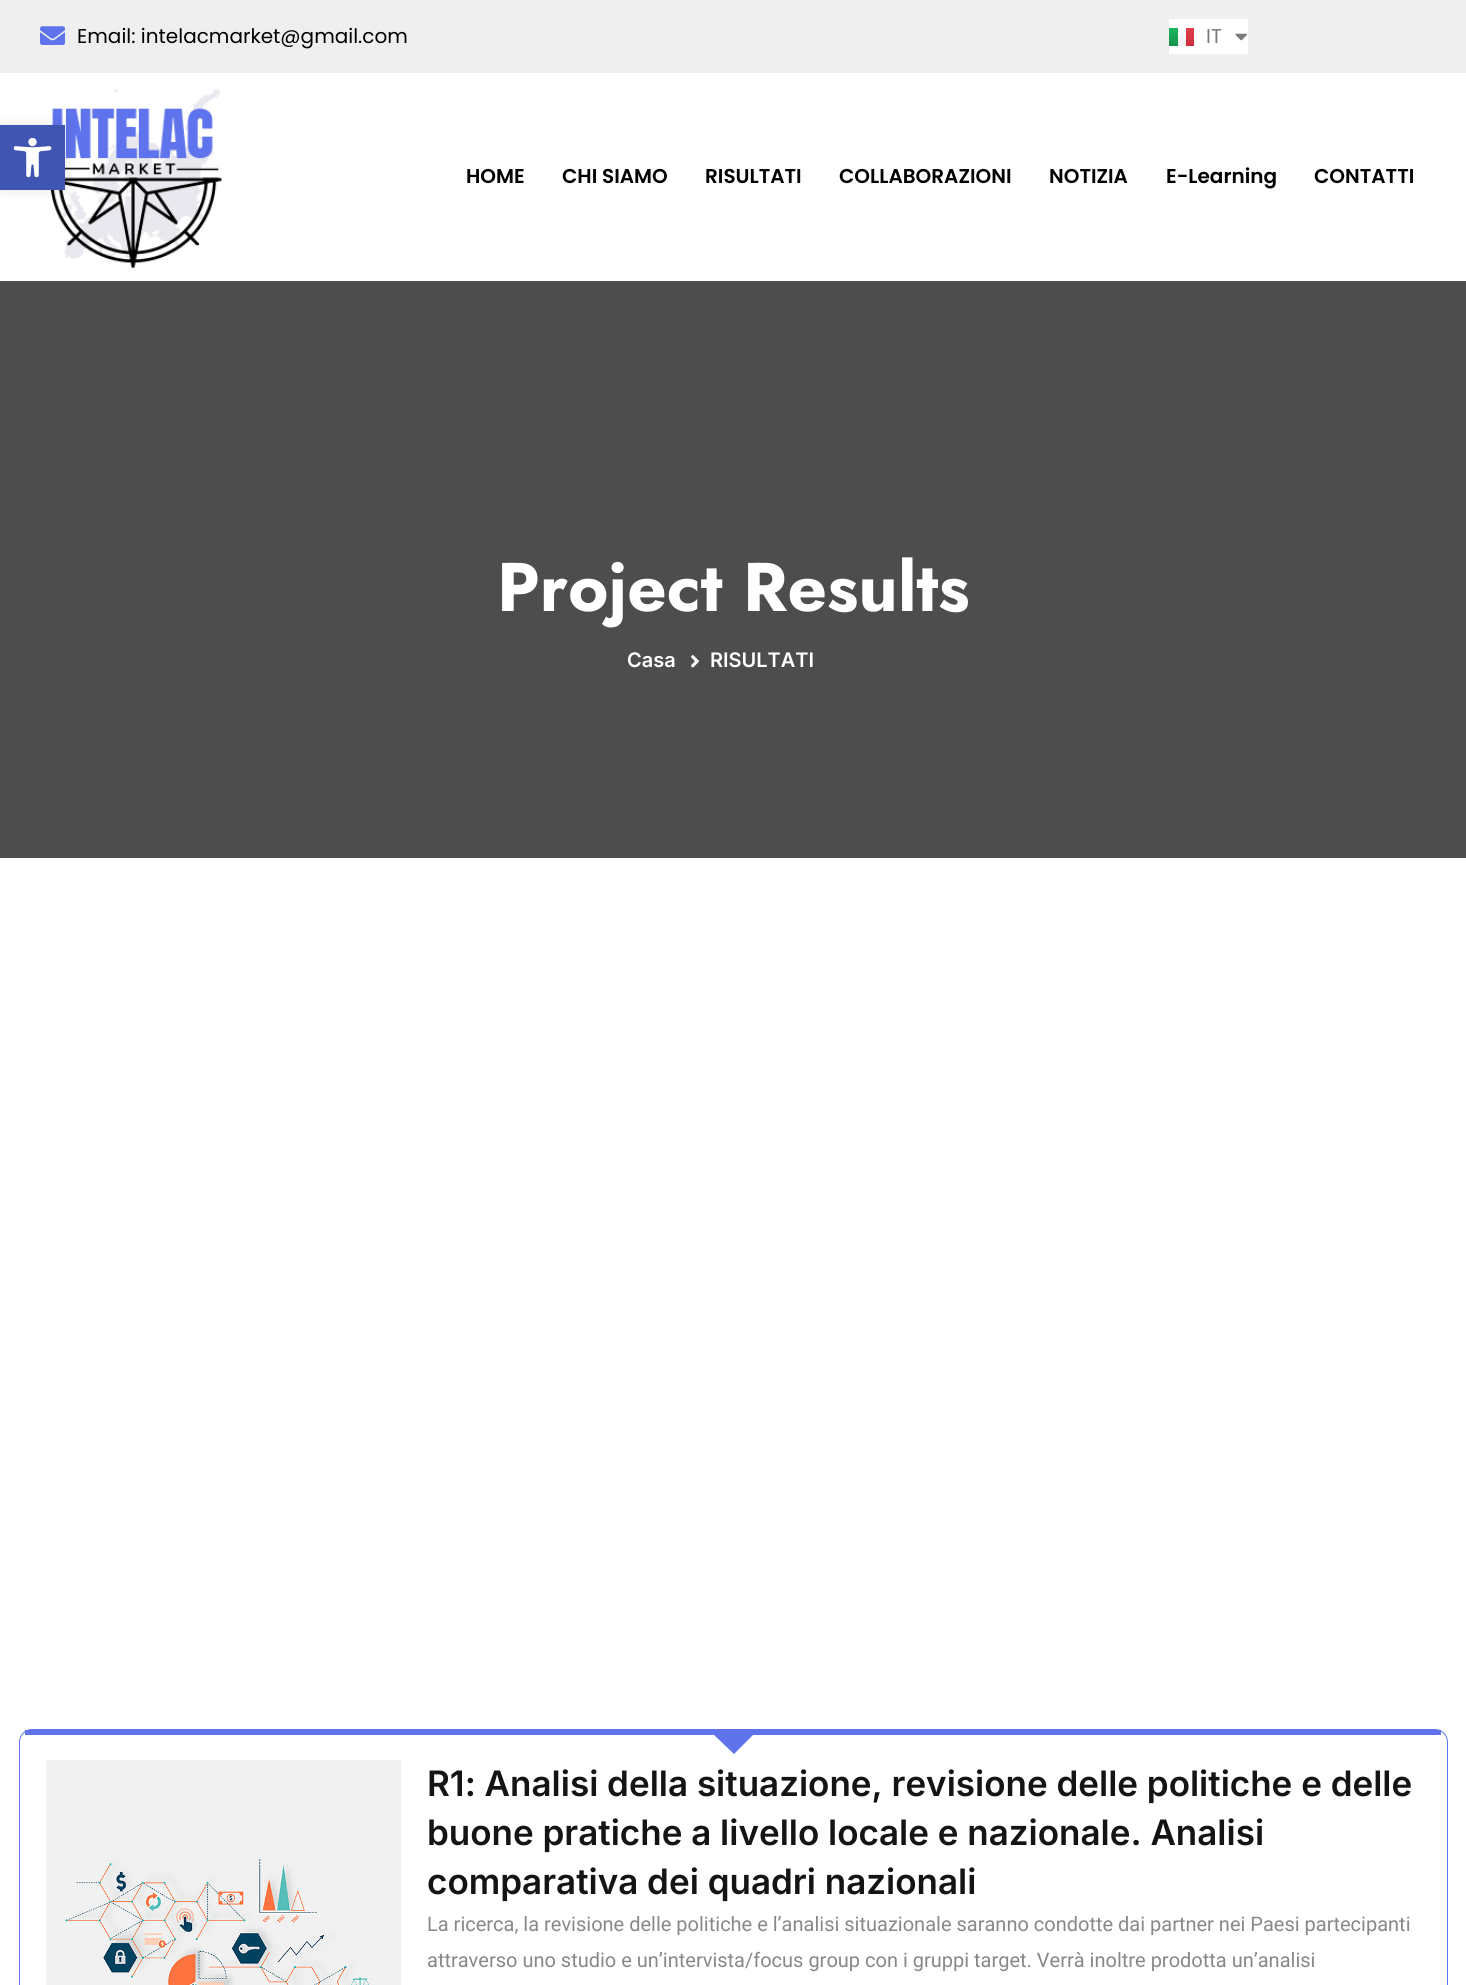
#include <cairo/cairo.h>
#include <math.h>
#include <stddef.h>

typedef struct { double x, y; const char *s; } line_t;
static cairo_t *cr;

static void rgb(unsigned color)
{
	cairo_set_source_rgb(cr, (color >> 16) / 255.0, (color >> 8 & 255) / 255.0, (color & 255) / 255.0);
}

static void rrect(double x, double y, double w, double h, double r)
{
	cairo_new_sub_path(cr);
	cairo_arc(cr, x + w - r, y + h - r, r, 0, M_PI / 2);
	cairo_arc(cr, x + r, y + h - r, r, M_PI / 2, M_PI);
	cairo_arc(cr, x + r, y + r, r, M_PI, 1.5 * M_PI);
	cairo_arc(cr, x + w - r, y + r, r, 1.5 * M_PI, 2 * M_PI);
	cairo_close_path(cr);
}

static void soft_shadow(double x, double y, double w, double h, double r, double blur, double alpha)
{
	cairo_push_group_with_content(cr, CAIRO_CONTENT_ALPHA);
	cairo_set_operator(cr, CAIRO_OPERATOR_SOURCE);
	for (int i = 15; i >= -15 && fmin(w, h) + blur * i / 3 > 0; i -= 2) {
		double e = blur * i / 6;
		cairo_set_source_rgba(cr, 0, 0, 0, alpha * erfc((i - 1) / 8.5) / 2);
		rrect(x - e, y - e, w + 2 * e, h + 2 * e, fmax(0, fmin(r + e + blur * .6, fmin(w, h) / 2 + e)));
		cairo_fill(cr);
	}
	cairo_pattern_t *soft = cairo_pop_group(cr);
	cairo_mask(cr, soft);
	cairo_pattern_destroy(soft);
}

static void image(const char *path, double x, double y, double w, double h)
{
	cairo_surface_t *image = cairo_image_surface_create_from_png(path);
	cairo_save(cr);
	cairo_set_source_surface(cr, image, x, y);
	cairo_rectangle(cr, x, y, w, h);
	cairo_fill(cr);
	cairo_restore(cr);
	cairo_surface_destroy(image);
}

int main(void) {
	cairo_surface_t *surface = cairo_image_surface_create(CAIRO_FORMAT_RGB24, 1466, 1985);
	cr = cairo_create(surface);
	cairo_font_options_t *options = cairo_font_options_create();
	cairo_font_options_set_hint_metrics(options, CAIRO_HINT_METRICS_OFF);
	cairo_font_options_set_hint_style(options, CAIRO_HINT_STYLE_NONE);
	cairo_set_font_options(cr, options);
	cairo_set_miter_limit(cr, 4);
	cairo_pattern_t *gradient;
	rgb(0xffffff);
	cairo_paint(cr);
	image("img/4.png", 50, 89, 172, 180);
	rgb(0x000000);
	soft_shadow(0, 125, 65, 65, 0, 6, 0.1);
	rgb(0x4054b2);
	cairo_rectangle(cr, 0, 125, 65, 65);
	cairo_fill(cr);
	image("img/1.png", 13, 138, 39, 40);
	rgb(0xefefef);
	cairo_rectangle(cr, 0, 0, 1466, 73);
	cairo_fill(cr);
	image("img/2.png", 40, 26, 25, 19);
	rgb(0xffffff);
	cairo_rectangle(cr, 1169, 19, 79, 35);
	cairo_fill(cr);
	gradient = cairo_pattern_create_linear(1188, 28, 1188, 46);
	cairo_pattern_add_color_stop_rgba(gradient, 0, 0.894, 0.239, 0.298, 1);
	cairo_pattern_add_color_stop_rgba(gradient, 1, 0.8, 0.18, 0.235, 1);
	cairo_set_source(cr, gradient);
	cairo_pattern_destroy(gradient);
	cairo_rectangle(cr, 1186, 28, 8, 18);
	cairo_fill(cr);
	gradient = cairo_pattern_create_linear(1173, 28, 1173, 46);
	cairo_pattern_add_color_stop_rgba(gradient, 0, 0.106, 0.714, 0.365, 1);
	cairo_pattern_add_color_stop_rgba(gradient, 1, 0.075, 0.569, 0.286, 1);
	cairo_set_source(cr, gradient);
	cairo_pattern_destroy(gradient);
	cairo_rectangle(cr, 1169, 28, 9, 18);
	cairo_fill(cr);
	gradient = cairo_pattern_create_linear(1182, 28, 1182, 46);
	cairo_pattern_add_color_stop_rgba(gradient, 0, 1, 1, 1, 1);
	cairo_pattern_add_color_stop_rgba(gradient, 1, 0.941, 0.941, 0.941, 1);
	cairo_set_source(cr, gradient);
	cairo_pattern_destroy(gradient);
	cairo_rectangle(cr, 1178, 28, 8, 18);
	cairo_fill(cr);
	image("img/3.png", 1235, 33, 12, 8);
	rgb(0x4d4d4d);
	cairo_rectangle(cr, 0, 281, 1466, 577);
	cairo_fill(cr);
	image("img/5.png", 691, 655, 8, 13);
	rrect(19.5, 1729.5, 1428, 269, 12.5);
	rgb(0x5e73ec);
	cairo_set_line_width(cr, 1);
	cairo_stroke(cr);
	cairo_rectangle(cr, 25, 1730, 1416, 5);
	cairo_fill(cr);
	cairo_new_path(cr);
	cairo_move_to(cr, 734, 1754);
	cairo_line_to(cr, 713, 1734);
	cairo_line_to(cr, 754, 1734);
	cairo_close_path(cr);
	cairo_fill(cr);
	image("img/6.png", 46, 1760, 355, 225);
	cairo_select_font_face(cr, "Poppins", CAIRO_FONT_SLANT_NORMAL, CAIRO_FONT_WEIGHT_NORMAL);
	cairo_set_font_size(cr, 20);
	rgb(0x000000);
	cairo_move_to(cr, 77, 43);
	cairo_show_text(cr, "Email: intelacmarket@gmail.com");
	rgb(0x7a7a7a);
	cairo_move_to(cr, 1206, 43);
	cairo_show_text(cr, "IT");
	cairo_select_font_face(cr, "Poppins SemiBold", CAIRO_FONT_SLANT_NORMAL, CAIRO_FONT_WEIGHT_NORMAL);
	rgb(0x000000);
	{
		static const line_t items[] = {
			{466, 183, "HOME"},
			{562, 183, "CHI SIAMO"},
			{705, 183, "RISULTATI"},
			{839, 183, "COLLABORAZIONI"},
			{1049, 183, "NOTIZIA"},
			{1166, 183, "E-Learning"},
			{1314, 183, "CONTATTI"},
		};
		for (size_t i = 0; i < sizeof items / sizeof *items; i++) {
			cairo_move_to(cr, items[i].x, items[i].y);
			cairo_show_text(cr, items[i].s);
		}
	}
	cairo_select_font_face(cr, "Jost", CAIRO_FONT_SLANT_NORMAL, CAIRO_FONT_WEIGHT_BOLD);
	cairo_set_font_size(cr, 68.75);
	rgb(0xffffff);
	cairo_move_to(cr, 497, 611);
	cairo_show_text(cr, "Project Results");
	cairo_select_font_face(cr, "Inter SemiBold", CAIRO_FONT_SLANT_NORMAL, CAIRO_FONT_WEIGHT_NORMAL);
	cairo_set_font_size(cr, 20);
	cairo_move_to(cr, 627, 667);
	cairo_show_text(cr, "Casa");
	cairo_move_to(cr, 710, 667);
	cairo_show_text(cr, "RISULTATI");
	cairo_set_font_size(cr, 35);
	rgb(0x141417);
	{
		static const line_t items[] = {
			{427, 1796, "R1: Analisi della situazione, revisione delle politiche e delle"},
			{427, 1845, "buone pratiche a livello locale e nazionale. Analisi"},
			{427, 1894, "comparativa dei quadri nazionali"},
		};
		for (size_t i = 0; i < sizeof items / sizeof *items; i++) {
			cairo_move_to(cr, items[i].x, items[i].y);
			cairo_show_text(cr, items[i].s);
		}
	}
	cairo_select_font_face(cr, "Roboto", CAIRO_FONT_SLANT_NORMAL, CAIRO_FONT_WEIGHT_NORMAL);
	cairo_set_font_size(cr, 20);
	rgb(0x888888);
	cairo_move_to(cr, 427, 1931);
	cairo_show_text(cr, "La ricerca, la revisione delle politiche e l’analisi situazionale saranno condotte dai partner nei Paesi partecipanti");
	cairo_move_to(cr, 427, 1967);
	cairo_show_text(cr, "attraverso uno studio e un’intervista/focus group con i gruppi target. Verrà inoltre prodotta un’analisi");
	cairo_surface_write_to_png(surface, "page.png");
	cairo_font_options_destroy(options);
	cairo_destroy(cr);
	cairo_surface_destroy(surface);
	return 0;
}
